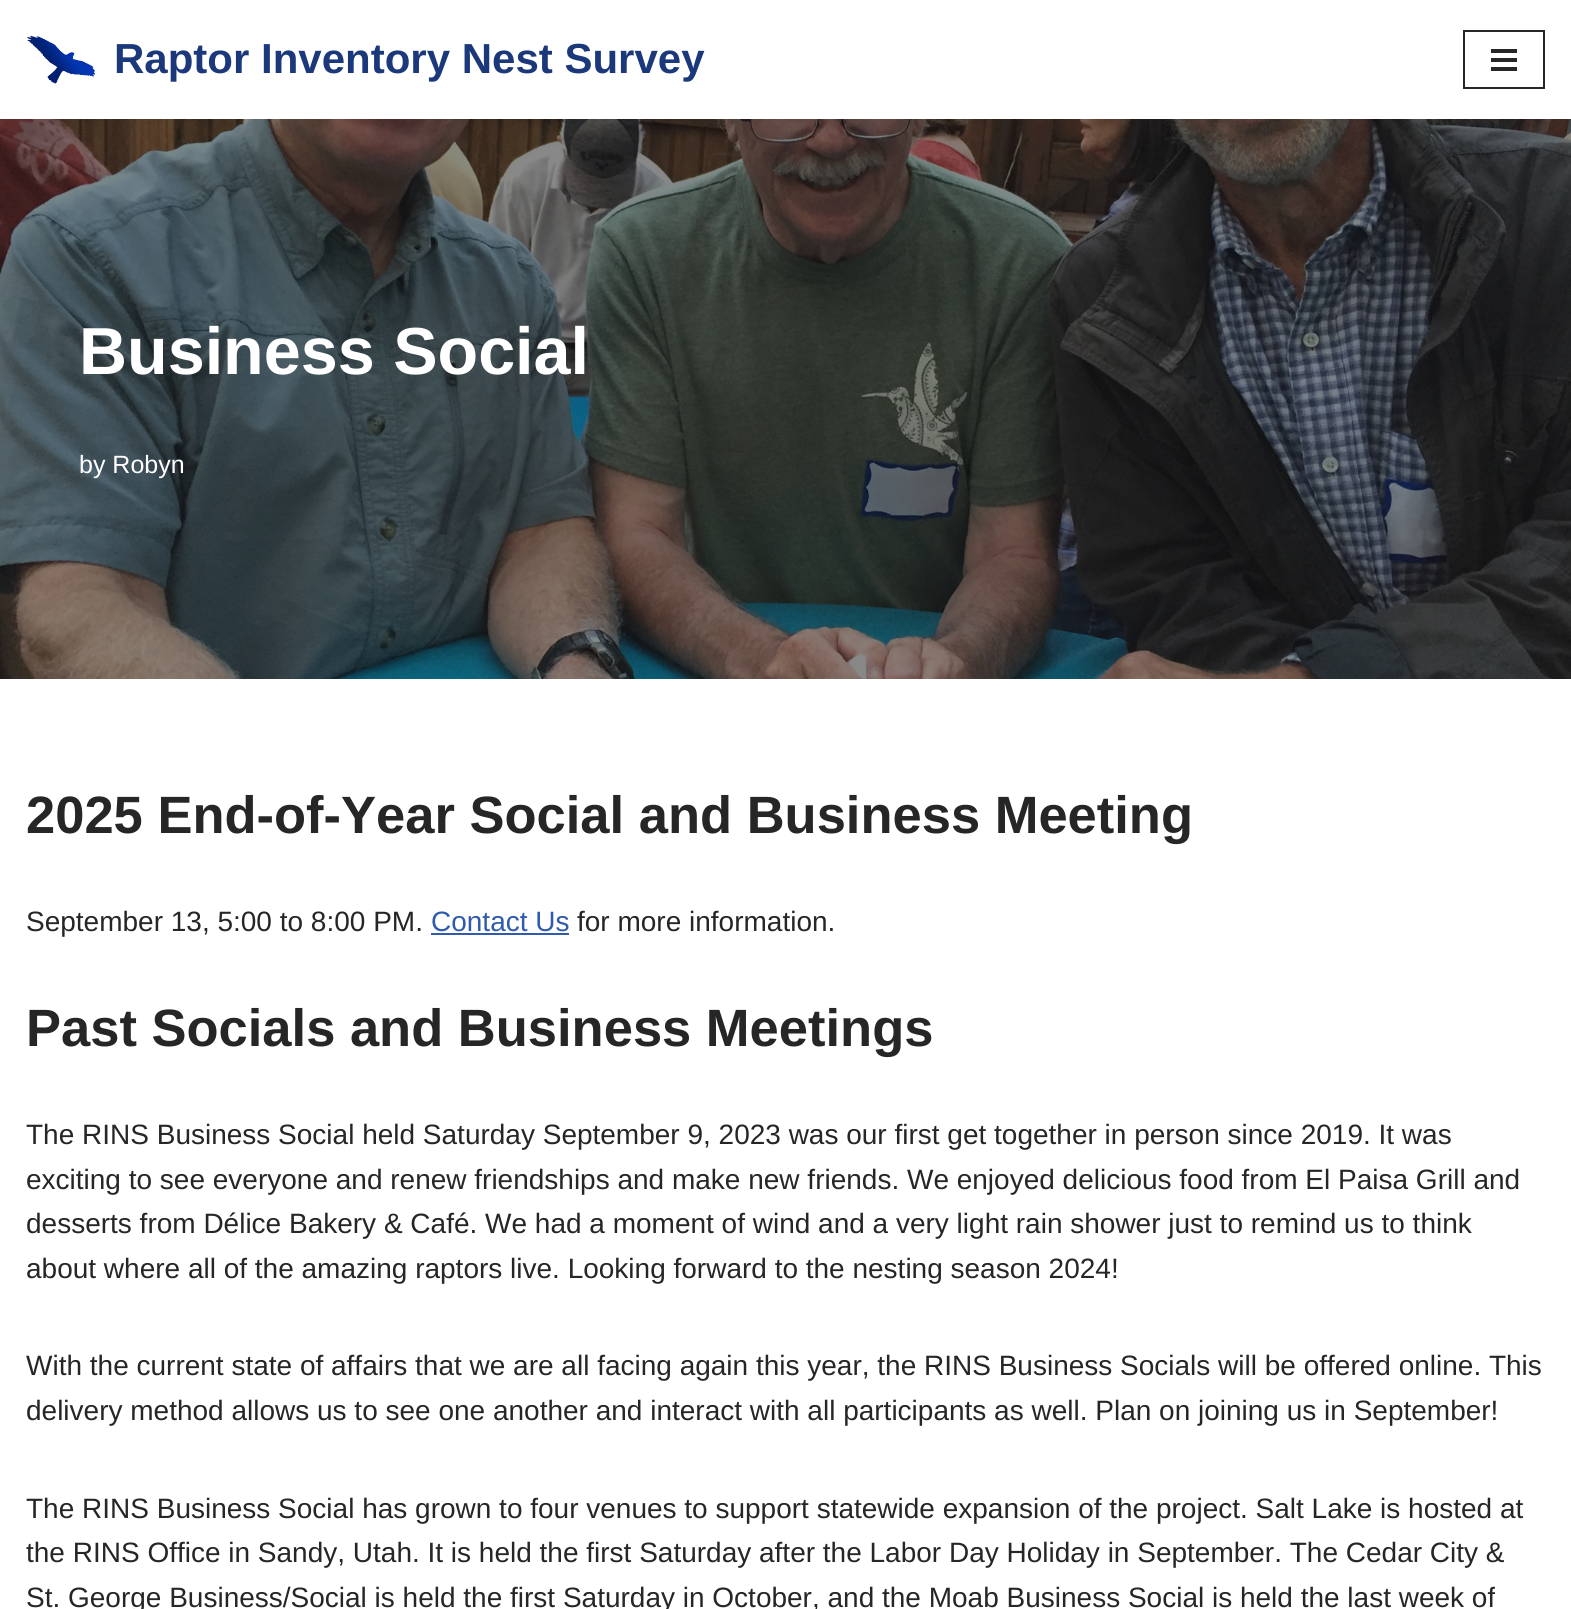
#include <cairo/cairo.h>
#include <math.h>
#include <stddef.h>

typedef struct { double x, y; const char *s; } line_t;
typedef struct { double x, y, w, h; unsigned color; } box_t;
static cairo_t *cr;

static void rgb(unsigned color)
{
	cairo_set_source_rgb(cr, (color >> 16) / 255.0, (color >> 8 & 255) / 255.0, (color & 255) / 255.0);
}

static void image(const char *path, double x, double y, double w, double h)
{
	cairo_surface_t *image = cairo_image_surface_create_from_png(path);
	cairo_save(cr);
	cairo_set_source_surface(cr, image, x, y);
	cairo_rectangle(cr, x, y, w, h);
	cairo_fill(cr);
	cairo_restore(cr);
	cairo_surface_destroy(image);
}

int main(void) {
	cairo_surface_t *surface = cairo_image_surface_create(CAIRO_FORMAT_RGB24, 1571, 1609);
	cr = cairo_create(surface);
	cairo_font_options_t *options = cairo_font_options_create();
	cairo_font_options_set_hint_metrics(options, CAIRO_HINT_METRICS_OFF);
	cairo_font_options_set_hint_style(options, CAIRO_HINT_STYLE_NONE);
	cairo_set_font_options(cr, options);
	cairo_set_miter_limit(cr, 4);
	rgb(0xffffff);
	cairo_paint(cr);
	image("img/1.png", 27, 35, 68, 49);
	cairo_rectangle(cr, 1464, 31, 80, 57);
	rgb(0x272626);
	cairo_stroke(cr);
	{
		static const box_t items[] = {
			{1491, 49, 26, 4, 0x272626},
			{1491, 58, 26, 4, 0x272626},
			{1491, 67, 26, 4, 0x272626},
		};
		for (size_t i = 0; i < sizeof items / sizeof *items; i++) {
			rgb(items[i].color);
			cairo_rectangle(cr, items[i].x, items[i].y, items[i].w, items[i].h);
			cairo_fill(cr);
		}
	}
	image("img/2.png", 0, 119, 1571, 560);
	rgb(0x2f5aae);
	cairo_rectangle(cr, 431, 933, 138, 2);
	cairo_fill(cr);
	cairo_select_font_face(cr, "Liberation Sans", CAIRO_FONT_SLANT_NORMAL, CAIRO_FONT_WEIGHT_BOLD);
	cairo_set_font_size(cr, 42);
	rgb(0x1b387a);
	cairo_move_to(cr, 114, 73);
	cairo_show_text(cr, "Raptor Inventory Nest Survey");
	cairo_set_font_size(cr, 66.5);
	rgb(0xffffff);
	cairo_move_to(cr, 79, 374);
	cairo_show_text(cr, "Business Social");
	cairo_select_font_face(cr, "Liberation Sans", CAIRO_FONT_SLANT_NORMAL, CAIRO_FONT_WEIGHT_NORMAL);
	cairo_set_font_size(cr, 25);
	cairo_move_to(cr, 79, 473);
	cairo_show_text(cr, "by Robyn");
	cairo_select_font_face(cr, "Liberation Sans", CAIRO_FONT_SLANT_NORMAL, CAIRO_FONT_WEIGHT_BOLD);
	cairo_set_font_size(cr, 52.5);
	rgb(0x272626);
	cairo_move_to(cr, 26, 833);
	cairo_show_text(cr, "2025 End-of-Year Social and Business Meeting");
	cairo_select_font_face(cr, "Liberation Sans", CAIRO_FONT_SLANT_NORMAL, CAIRO_FONT_WEIGHT_NORMAL);
	cairo_set_font_size(cr, 28);
	cairo_move_to(cr, 26, 931);
	cairo_show_text(cr, "September 13, 5:00 to 8:00 PM.");
	rgb(0x2f5aae);
	cairo_move_to(cr, 431, 931);
	cairo_show_text(cr, "Contact Us");
	rgb(0x272626);
	cairo_move_to(cr, 577, 931);
	cairo_show_text(cr, "for more information.");
	cairo_select_font_face(cr, "Liberation Sans", CAIRO_FONT_SLANT_NORMAL, CAIRO_FONT_WEIGHT_BOLD);
	cairo_set_font_size(cr, 52.5);
	cairo_move_to(cr, 26, 1046);
	cairo_show_text(cr, "Past Socials and Business Meetings");
	cairo_select_font_face(cr, "Liberation Sans", CAIRO_FONT_SLANT_NORMAL, CAIRO_FONT_WEIGHT_NORMAL);
	cairo_set_font_size(cr, 28);
	{
		static const line_t items[] = {
			{26, 1144, "The RINS Business Social held Saturday September 9, 2023 was our first get together in person since 2019. It was"},
			{26, 1189, "exciting to see everyone and renew friendships and make new friends. We enjoyed delicious food from El Paisa Grill and"},
			{26, 1233, "desserts from Délice Bakery & Café. We had a moment of wind and a very light rain shower just to remind us to think"},
			{26, 1278, "about where all of the amazing raptors live. Looking forward to the nesting season 2024!"},
			{26, 1375, "With the current state of affairs that we are all facing again this year, the RINS Business Socials will be offered online. This"},
			{26, 1420, "delivery method allows us to see one another and interact with all participants as well. Plan on joining us in September!"},
			{26, 1518, "The RINS Business Social has grown to four venues to support statewide expansion of the project. Salt Lake is hosted at"},
			{26, 1562, "the RINS Office in Sandy, Utah. It is held the first Saturday after the Labor Day Holiday in September. The Cedar City &"},
			{26, 1607, "St. George Business/Social is held the first Saturday in October, and the Moab Business Social is held the last week of"},
		};
		for (size_t i = 0; i < sizeof items / sizeof *items; i++) {
			cairo_move_to(cr, items[i].x, items[i].y);
			cairo_show_text(cr, items[i].s);
		}
	}
	cairo_surface_write_to_png(surface, "page.png");
	cairo_font_options_destroy(options);
	cairo_destroy(cr);
	cairo_surface_destroy(surface);
	return 0;
}
